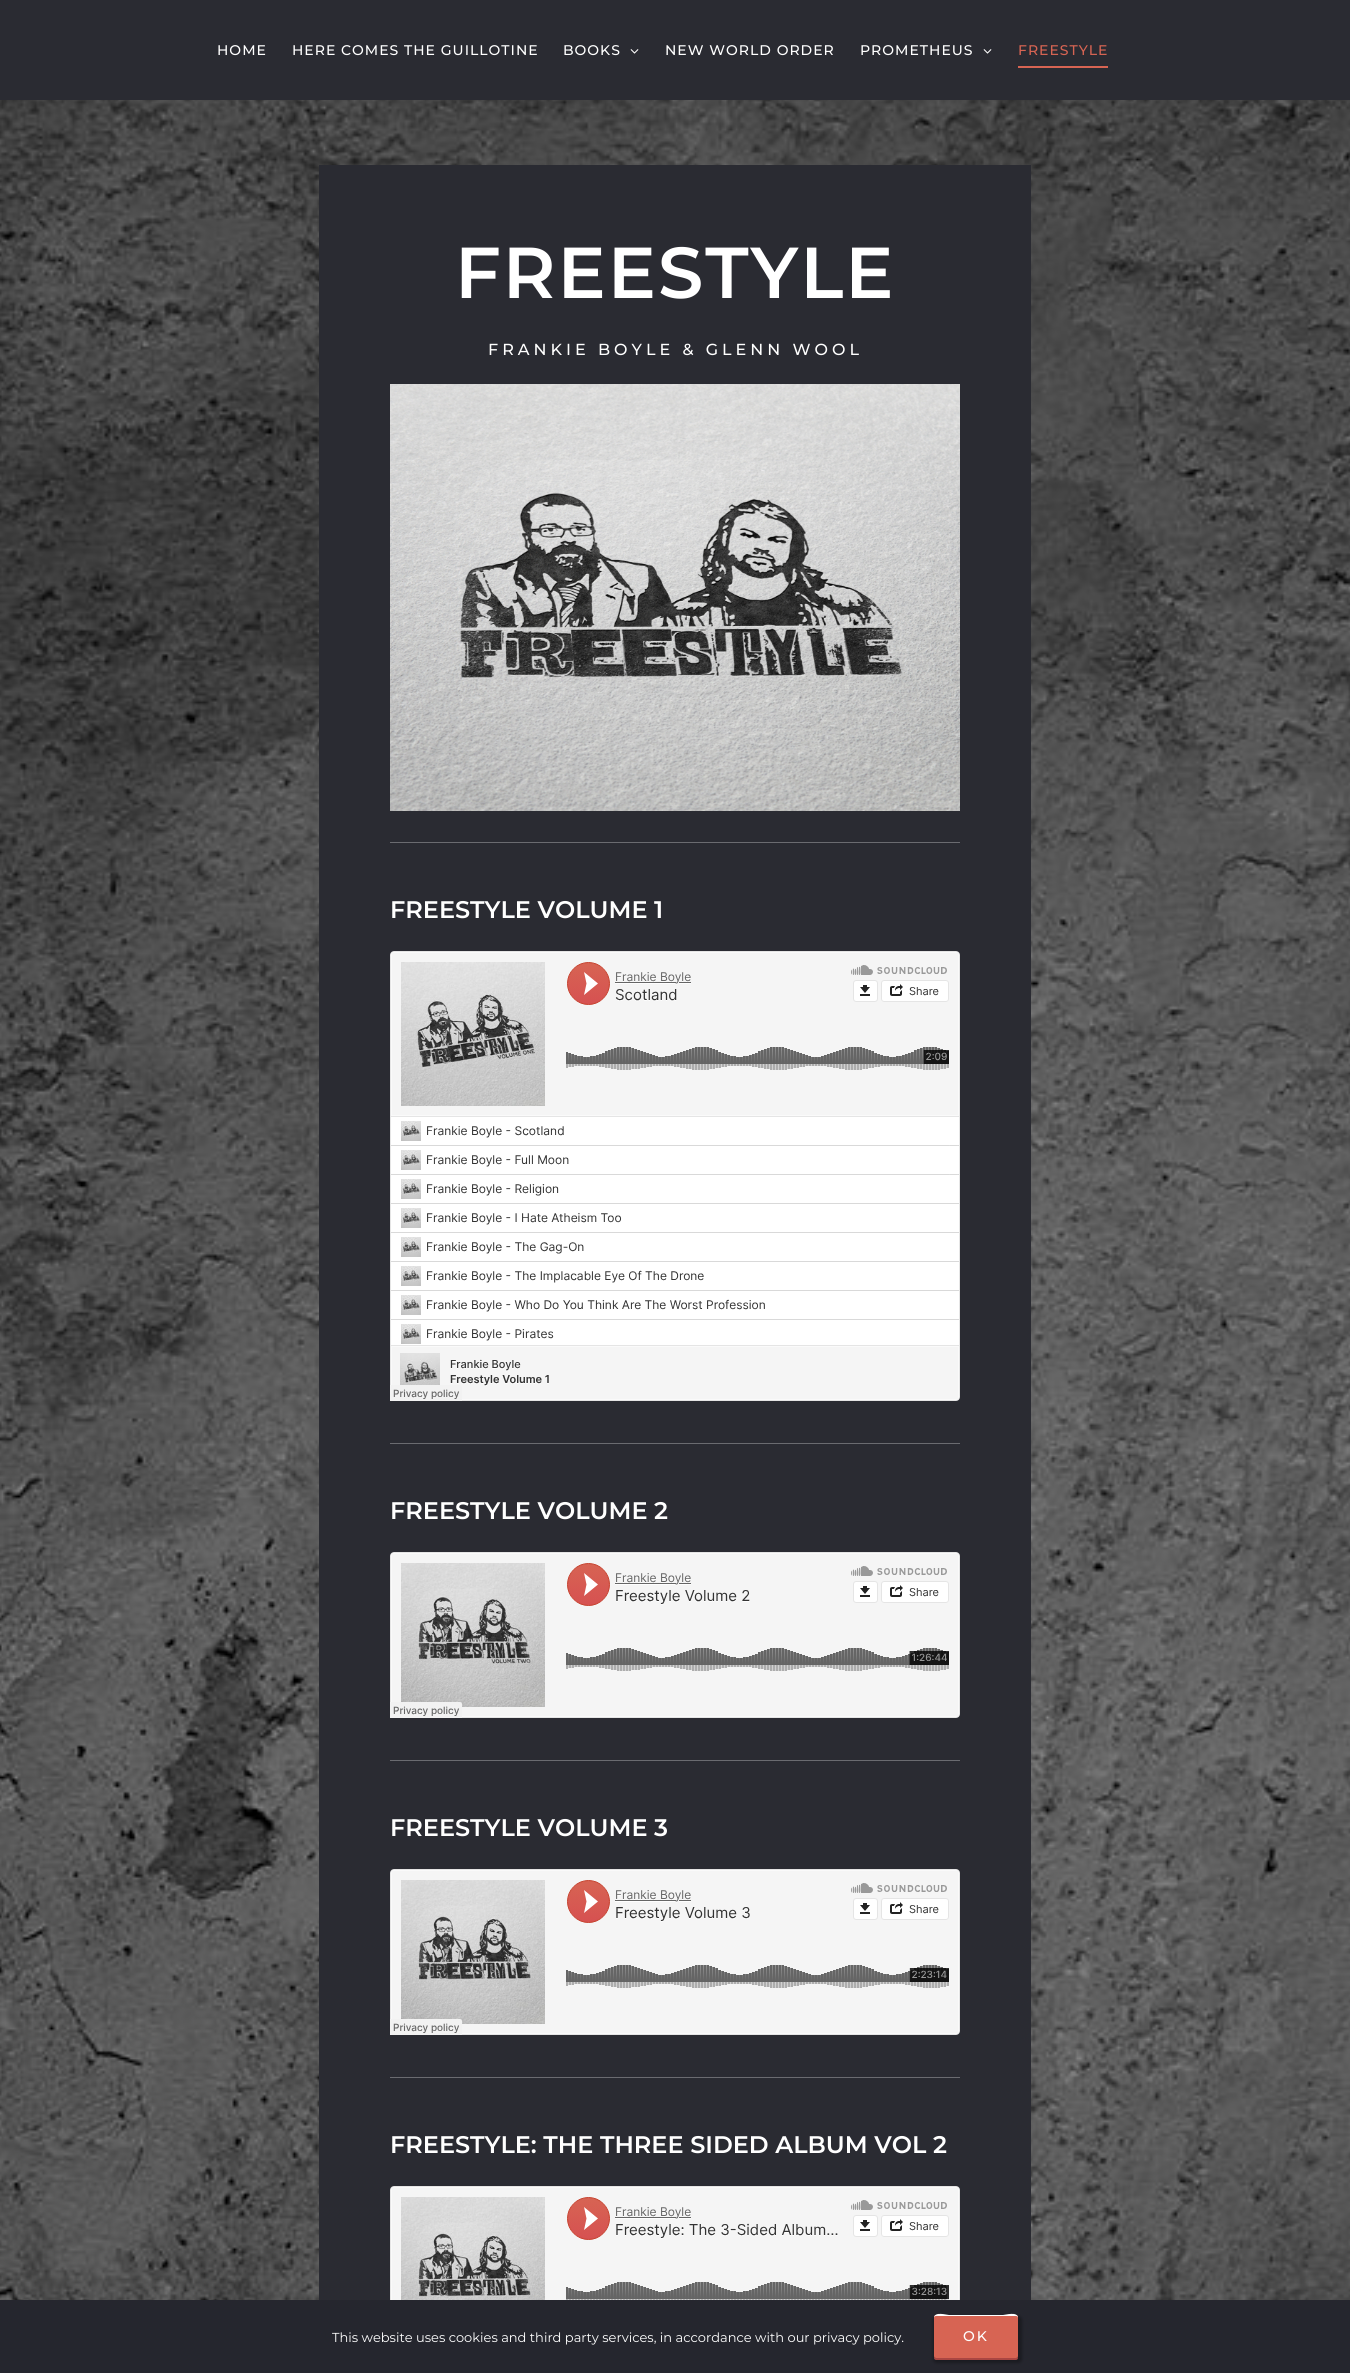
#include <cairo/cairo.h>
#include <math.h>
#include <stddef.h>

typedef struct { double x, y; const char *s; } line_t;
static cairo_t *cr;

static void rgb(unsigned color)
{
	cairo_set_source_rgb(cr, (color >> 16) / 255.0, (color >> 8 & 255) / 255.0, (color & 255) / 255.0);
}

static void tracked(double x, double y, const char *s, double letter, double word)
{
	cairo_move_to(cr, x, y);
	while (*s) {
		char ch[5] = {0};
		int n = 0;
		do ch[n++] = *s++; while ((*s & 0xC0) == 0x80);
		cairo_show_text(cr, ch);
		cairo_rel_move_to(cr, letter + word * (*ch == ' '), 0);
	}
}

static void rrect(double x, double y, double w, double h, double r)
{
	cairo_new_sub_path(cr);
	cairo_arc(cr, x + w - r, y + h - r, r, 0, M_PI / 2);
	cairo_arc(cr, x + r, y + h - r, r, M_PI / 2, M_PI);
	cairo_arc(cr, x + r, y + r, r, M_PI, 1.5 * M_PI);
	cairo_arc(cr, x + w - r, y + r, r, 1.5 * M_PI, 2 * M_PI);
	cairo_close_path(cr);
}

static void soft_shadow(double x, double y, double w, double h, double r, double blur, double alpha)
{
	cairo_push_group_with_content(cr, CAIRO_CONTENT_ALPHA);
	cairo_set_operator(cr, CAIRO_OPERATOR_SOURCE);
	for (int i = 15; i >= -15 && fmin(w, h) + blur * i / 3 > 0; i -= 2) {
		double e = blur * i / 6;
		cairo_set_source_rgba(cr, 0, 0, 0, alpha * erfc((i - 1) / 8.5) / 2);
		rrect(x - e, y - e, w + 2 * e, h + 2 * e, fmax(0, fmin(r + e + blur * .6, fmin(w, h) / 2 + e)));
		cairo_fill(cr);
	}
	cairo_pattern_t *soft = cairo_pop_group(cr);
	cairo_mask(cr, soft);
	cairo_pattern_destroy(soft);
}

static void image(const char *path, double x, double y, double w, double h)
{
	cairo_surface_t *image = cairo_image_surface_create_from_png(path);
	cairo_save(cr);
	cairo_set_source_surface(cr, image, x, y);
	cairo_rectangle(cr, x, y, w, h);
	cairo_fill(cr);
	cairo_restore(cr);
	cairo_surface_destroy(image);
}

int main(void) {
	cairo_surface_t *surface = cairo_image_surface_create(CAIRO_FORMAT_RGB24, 1350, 2373);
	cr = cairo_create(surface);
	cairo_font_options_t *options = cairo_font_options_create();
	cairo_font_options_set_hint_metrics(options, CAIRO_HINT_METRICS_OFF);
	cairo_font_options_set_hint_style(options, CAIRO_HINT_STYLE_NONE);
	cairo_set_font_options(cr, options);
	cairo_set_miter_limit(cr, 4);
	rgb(0xffffff);
	cairo_paint(cr);
	image("img/1.png", 0, 100, 1350, 2200);
	rgb(0x2a2b32);
	cairo_rectangle(cr, 0, 0, 1350, 100);
	cairo_fill(cr);
	image("img/2.png", 630, 49, 9, 5);
	image("img/2.png", 983, 49, 9, 5);
	rgb(0xd76453);
	cairo_rectangle(cr, 1018, 66, 90, 2);
	cairo_fill(cr);
	rgb(0x2a2b32);
	cairo_rectangle(cr, 319, 165, 712, 2135);
	cairo_fill(cr);
	image("img/3.png", 390, 384, 570, 427);
	rgb(0x6a6b70);
	cairo_rectangle(cr, 390, 842, 570, 1);
	cairo_fill(cr);
	image("img/4.png", 390, 951, 570, 450);
	cairo_rectangle(cr, 390, 1443, 570, 1);
	cairo_fill(cr);
	image("img/5.png", 390, 1552, 570, 166);
	cairo_rectangle(cr, 390, 1760, 570, 1);
	cairo_fill(cr);
	image("img/6.png", 390, 1869, 570, 166);
	cairo_rectangle(cr, 390, 2077, 570, 1);
	cairo_fill(cr);
	image("img/7.png", 390, 2186, 570, 114);
	rgb(0x25262e);
	cairo_rectangle(cr, 0, 2300, 1350, 73);
	cairo_fill(cr);
	rgb(0x000000);
	soft_shadow(933, 2316, 89, 47, 4, 1.5, 0.3);
	rgb(0xaa4642);
	cairo_new_path(cr);
	cairo_move_to(cr, 934, 2356);
	cairo_line_to(cr, 934, 2358);
	cairo_curve_to(cr, 934, 2359, 935, 2360, 936, 2360);
	cairo_line_to(cr, 1016, 2360);
	cairo_curve_to(cr, 1017, 2360, 1018, 2359, 1018, 2358);
	cairo_line_to(cr, 1018, 2356);
	cairo_curve_to(cr, 1018, 2357, 1017, 2358, 1016, 2358);
	cairo_line_to(cr, 935, 2358);
	cairo_close_path(cr);
	cairo_fill(cr);
	rgb(0xd76453);
	rrect(934, 2315, 84, 43, 2);
	cairo_fill(cr);
	rgb(0xffffff);
	cairo_new_path(cr);
	cairo_move_to(cr, 936, 2316);
	cairo_line_to(cr, 1016, 2316);
	cairo_curve_to(cr, 1017, 2316, 1018, 2317, 1018, 2318);
	cairo_curve_to(cr, 1018, 2311, 1005, 2315, 1003, 2315);
	cairo_line_to(cr, 949, 2315);
	cairo_curve_to(cr, 947, 2315, 934, 2311, 934, 2318);
	cairo_curve_to(cr, 934, 2317, 935, 2316, 936, 2316);
	cairo_close_path(cr);
	cairo_fill(cr);
	cairo_select_font_face(cr, "Montserrat Medium", CAIRO_FONT_SLANT_NORMAL, CAIRO_FONT_WEIGHT_NORMAL);
	cairo_set_font_size(cr, 14);
	{
		static const line_t items[] = {
			{217, 55, "HOME"},
			{292, 55, "HERE COMES THE GUILLOTINE"},
			{563, 55, "BOOKS"},
			{665, 55, "NEW WORLD ORDER"},
			{860, 55, "PROMETHEUS"},
		};
		for (size_t i = 0; i < sizeof items / sizeof *items; i++) {
			tracked(items[i].x, items[i].y, items[i].s, 1, 0);
		}
	}
	rgb(0xd76453);
	tracked(1018, 55, "FREESTYLE", 1, 0);
	cairo_select_font_face(cr, "Montserrat SemiBold", CAIRO_FONT_SLANT_NORMAL, CAIRO_FONT_WEIGHT_NORMAL);
	cairo_set_font_size(cr, 72);
	rgb(0xffffff);
	tracked(455, 298, "FREESTYLE", 2, 0);
	cairo_select_font_face(cr, "Montserrat Medium", CAIRO_FONT_SLANT_NORMAL, CAIRO_FONT_WEIGHT_NORMAL);
	cairo_set_font_size(cr, 16);
	tracked(488, 355, "FRANKIE BOYLE & GLENN WOOL", 4, 0);
	cairo_select_font_face(cr, "Montserrat SemiBold", CAIRO_FONT_SLANT_NORMAL, CAIRO_FONT_WEIGHT_NORMAL);
	cairo_set_font_size(cr, 24);
	{
		static const line_t items[] = {
			{390, 918, "FREESTYLE VOLUME 1"},
			{390, 1519, "FREESTYLE VOLUME 2"},
			{390, 1836, "FREESTYLE VOLUME 3"},
			{390, 2153, "FREESTYLE: THE THREE SIDED ALBUM VOL 2"},
		};
		for (size_t i = 0; i < sizeof items / sizeof *items; i++) {
			cairo_move_to(cr, items[i].x, items[i].y);
			cairo_show_text(cr, items[i].s);
		}
	}
	cairo_select_font_face(cr, "Montserrat", CAIRO_FONT_SLANT_NORMAL, CAIRO_FONT_WEIGHT_NORMAL);
	cairo_set_font_size(cr, 13);
	cairo_move_to(cr, 332, 2342);
	cairo_show_text(cr, "This website uses cookies and third party services, in accordance with our privacy policy.");
	cairo_select_font_face(cr, "Montserrat Medium", CAIRO_FONT_SLANT_NORMAL, CAIRO_FONT_WEIGHT_NORMAL);
	cairo_set_font_size(cr, 14);
	tracked(963, 2341, "OK", 2, 0);
	cairo_surface_write_to_png(surface, "page.png");
	cairo_font_options_destroy(options);
	cairo_destroy(cr);
	cairo_surface_destroy(surface);
	return 0;
}
